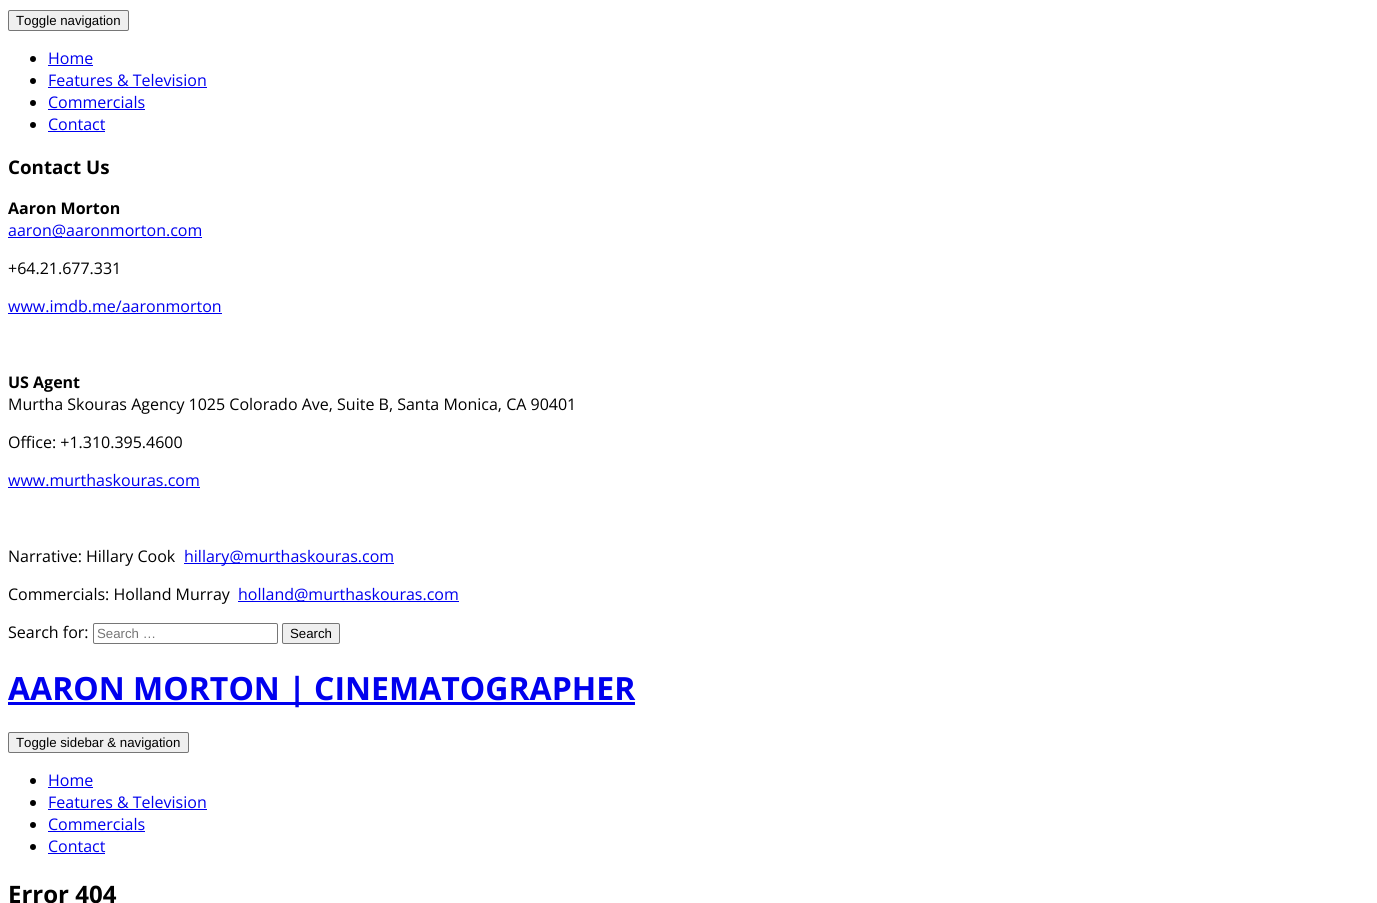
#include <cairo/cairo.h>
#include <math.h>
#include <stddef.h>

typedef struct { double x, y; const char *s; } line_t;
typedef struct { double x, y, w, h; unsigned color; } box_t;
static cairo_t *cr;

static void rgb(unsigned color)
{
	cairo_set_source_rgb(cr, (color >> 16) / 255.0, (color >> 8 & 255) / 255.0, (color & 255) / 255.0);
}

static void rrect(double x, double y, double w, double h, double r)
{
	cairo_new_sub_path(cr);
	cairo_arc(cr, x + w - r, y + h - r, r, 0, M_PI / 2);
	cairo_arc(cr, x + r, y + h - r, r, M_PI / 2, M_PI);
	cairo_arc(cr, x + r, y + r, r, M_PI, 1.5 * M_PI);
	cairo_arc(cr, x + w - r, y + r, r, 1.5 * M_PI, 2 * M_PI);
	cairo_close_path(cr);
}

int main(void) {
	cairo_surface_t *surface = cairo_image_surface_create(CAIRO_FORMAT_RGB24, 1377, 903);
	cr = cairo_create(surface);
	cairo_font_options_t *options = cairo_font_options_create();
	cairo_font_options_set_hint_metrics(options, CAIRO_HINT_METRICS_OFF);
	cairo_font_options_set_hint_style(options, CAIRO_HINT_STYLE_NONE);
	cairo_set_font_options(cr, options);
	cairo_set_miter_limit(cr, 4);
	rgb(0xffffff);
	cairo_paint(cr);
	rgb(0xefefef);
	rrect(8.5, 10.5, 120, 20, 1.5);
	cairo_fill_preserve(cr);
	rgb(0x767676);
	cairo_set_line_width(cr, 1);
	cairo_stroke(cr);
	rgb(0x000000);
	cairo_arc(cr, 33, 59, 3, 0, 2 * M_PI);
	cairo_fill(cr);
	rgb(0x0000ee);
	cairo_rectangle(cr, 48, 65, 45, 1);
	cairo_fill(cr);
	rgb(0x000000);
	cairo_arc(cr, 33, 81, 3, 0, 2 * M_PI);
	cairo_fill(cr);
	rgb(0x0000ee);
	cairo_rectangle(cr, 48, 87, 159, 1);
	cairo_fill(cr);
	rgb(0x000000);
	cairo_arc(cr, 33, 103, 3, 0, 2 * M_PI);
	cairo_fill(cr);
	rgb(0x0000ee);
	cairo_rectangle(cr, 48, 109, 97, 1);
	cairo_fill(cr);
	rgb(0x000000);
	cairo_arc(cr, 33, 125, 3, 0, 2 * M_PI);
	cairo_fill(cr);
	{
		static const box_t items[] = {
			{48, 131, 57, 1, 0x0000ee},
			{8, 237, 194, 1, 0x0000ee},
			{8, 313, 214, 1, 0x0000ee},
			{8, 487, 192, 1, 0x0000ee},
			{184, 563, 210, 1, 0x0000ee},
			{238, 601, 221, 1, 0x0000ee},
		};
		for (size_t i = 0; i < sizeof items / sizeof *items; i++) {
			rgb(items[i].color);
			cairo_rectangle(cr, items[i].x, items[i].y, items[i].w, items[i].h);
			cairo_fill(cr);
		}
	}
	rrect(93.5, 623.5, 184, 20, 1.5);
	rgb(0x767676);
	cairo_stroke(cr);
	rgb(0xefefef);
	rrect(282.5, 623.5, 57, 20, 1.5);
	cairo_fill_preserve(cr);
	rgb(0x767676);
	cairo_stroke(cr);
	rgb(0x0000ee);
	cairo_rectangle(cr, 8, 702, 627, 3);
	cairo_fill(cr);
	rgb(0xefefef);
	rrect(8.5, 732.5, 180, 20, 1.5);
	cairo_fill_preserve(cr);
	rgb(0x767676);
	cairo_stroke(cr);
	rgb(0x000000);
	cairo_arc(cr, 33, 781, 3, 0, 2 * M_PI);
	cairo_fill(cr);
	rgb(0x0000ee);
	cairo_rectangle(cr, 48, 787, 45, 1);
	cairo_fill(cr);
	rgb(0x000000);
	cairo_arc(cr, 33, 803, 3, 0, 2 * M_PI);
	cairo_fill(cr);
	rgb(0x0000ee);
	cairo_rectangle(cr, 48, 809, 159, 1);
	cairo_fill(cr);
	rgb(0x000000);
	cairo_arc(cr, 33, 825, 3, 0, 2 * M_PI);
	cairo_fill(cr);
	rgb(0x0000ee);
	cairo_rectangle(cr, 48, 831, 97, 1);
	cairo_fill(cr);
	rgb(0x000000);
	cairo_arc(cr, 33, 847, 3, 0, 2 * M_PI);
	cairo_fill(cr);
	rgb(0x0000ee);
	cairo_rectangle(cr, 48, 853, 57, 1);
	cairo_fill(cr);
	cairo_select_font_face(cr, "Liberation Sans", CAIRO_FONT_SLANT_NORMAL, CAIRO_FONT_WEIGHT_NORMAL);
	cairo_set_font_size(cr, 13.25);
	rgb(0x000000);
	cairo_move_to(cr, 16, 25);
	cairo_show_text(cr, "Toggle navigation");
	cairo_select_font_face(cr, "Open Sans", CAIRO_FONT_SLANT_NORMAL, CAIRO_FONT_WEIGHT_NORMAL);
	cairo_set_font_size(cr, 16);
	rgb(0x0000ee);
	{
		static const line_t items[] = {
			{48, 64, "Home"},
			{48, 86, "Features & Television"},
			{48, 108, "Commercials"},
			{48, 130, "Contact"},
		};
		for (size_t i = 0; i < sizeof items / sizeof *items; i++) {
			cairo_move_to(cr, items[i].x, items[i].y);
			cairo_show_text(cr, items[i].s);
		}
	}
	cairo_select_font_face(cr, "Open Sans", CAIRO_FONT_SLANT_NORMAL, CAIRO_FONT_WEIGHT_BOLD);
	cairo_set_font_size(cr, 18.75);
	rgb(0x000000);
	cairo_move_to(cr, 8, 174);
	cairo_show_text(cr, "Contact Us");
	cairo_set_font_size(cr, 16);
	cairo_move_to(cr, 8, 214);
	cairo_show_text(cr, "Aaron Morton");
	cairo_select_font_face(cr, "Open Sans", CAIRO_FONT_SLANT_NORMAL, CAIRO_FONT_WEIGHT_NORMAL);
	rgb(0x0000ee);
	cairo_move_to(cr, 8, 236);
	cairo_show_text(cr, "aaron@aaronmorton.com");
	rgb(0x000000);
	cairo_move_to(cr, 8, 274);
	cairo_show_text(cr, "+64.21.677.331");
	rgb(0x0000ee);
	cairo_move_to(cr, 8, 312);
	cairo_show_text(cr, "www.imdb.me/aaronmorton");
	cairo_select_font_face(cr, "Open Sans", CAIRO_FONT_SLANT_NORMAL, CAIRO_FONT_WEIGHT_BOLD);
	rgb(0x000000);
	cairo_move_to(cr, 8, 388);
	cairo_show_text(cr, "US Agent");
	cairo_select_font_face(cr, "Open Sans", CAIRO_FONT_SLANT_NORMAL, CAIRO_FONT_WEIGHT_NORMAL);
	cairo_move_to(cr, 8, 410);
	cairo_show_text(cr, "Murtha Skouras Agency 1025 Colorado Ave, Suite B, Santa Monica, CA 90401");
	cairo_move_to(cr, 8, 448);
	cairo_show_text(cr, "Office: +1.310.395.4600");
	rgb(0x0000ee);
	cairo_move_to(cr, 8, 486);
	cairo_show_text(cr, "www.murthaskouras.com");
	rgb(0x000000);
	cairo_move_to(cr, 8, 562);
	cairo_show_text(cr, "Narrative: Hillary Cook");
	rgb(0x0000ee);
	cairo_move_to(cr, 184, 562);
	cairo_show_text(cr, "hillary@murthaskouras.com");
	rgb(0x000000);
	cairo_move_to(cr, 8, 600);
	cairo_show_text(cr, "Commercials: Holland Murray");
	rgb(0x0000ee);
	cairo_move_to(cr, 238, 600);
	cairo_show_text(cr, "holland@murthaskouras.com");
	rgb(0x000000);
	cairo_move_to(cr, 8, 638);
	cairo_show_text(cr, "Search for:");
	cairo_select_font_face(cr, "Liberation Sans", CAIRO_FONT_SLANT_NORMAL, CAIRO_FONT_WEIGHT_NORMAL);
	cairo_set_font_size(cr, 13.25);
	rgb(0x757575);
	cairo_move_to(cr, 97, 638);
	cairo_show_text(cr, "Search …");
	rgb(0x000000);
	cairo_move_to(cr, 290, 638);
	cairo_show_text(cr, "Search");
	cairo_select_font_face(cr, "Open Sans", CAIRO_FONT_SLANT_NORMAL, CAIRO_FONT_WEIGHT_BOLD);
	cairo_set_font_size(cr, 32);
	rgb(0x0000ee);
	cairo_move_to(cr, 8, 700);
	cairo_show_text(cr, "AARON MORTON | CINEMATOGRAPHER");
	cairo_select_font_face(cr, "Liberation Sans", CAIRO_FONT_SLANT_NORMAL, CAIRO_FONT_WEIGHT_NORMAL);
	cairo_set_font_size(cr, 13.25);
	rgb(0x000000);
	cairo_move_to(cr, 16, 747);
	cairo_show_text(cr, "Toggle sidebar & navigation");
	cairo_select_font_face(cr, "Open Sans", CAIRO_FONT_SLANT_NORMAL, CAIRO_FONT_WEIGHT_NORMAL);
	cairo_set_font_size(cr, 16);
	rgb(0x0000ee);
	{
		static const line_t items[] = {
			{48, 786, "Home"},
			{48, 808, "Features & Television"},
			{48, 830, "Commercials"},
			{48, 852, "Contact"},
		};
		for (size_t i = 0; i < sizeof items / sizeof *items; i++) {
			cairo_move_to(cr, items[i].x, items[i].y);
			cairo_show_text(cr, items[i].s);
		}
	}
	cairo_select_font_face(cr, "Open Sans", CAIRO_FONT_SLANT_NORMAL, CAIRO_FONT_WEIGHT_BOLD);
	cairo_set_font_size(cr, 24);
	rgb(0x000000);
	cairo_move_to(cr, 8, 903);
	cairo_show_text(cr, "Error 404");
	cairo_surface_write_to_png(surface, "page.png");
	cairo_font_options_destroy(options);
	cairo_destroy(cr);
	cairo_surface_destroy(surface);
	return 0;
}
